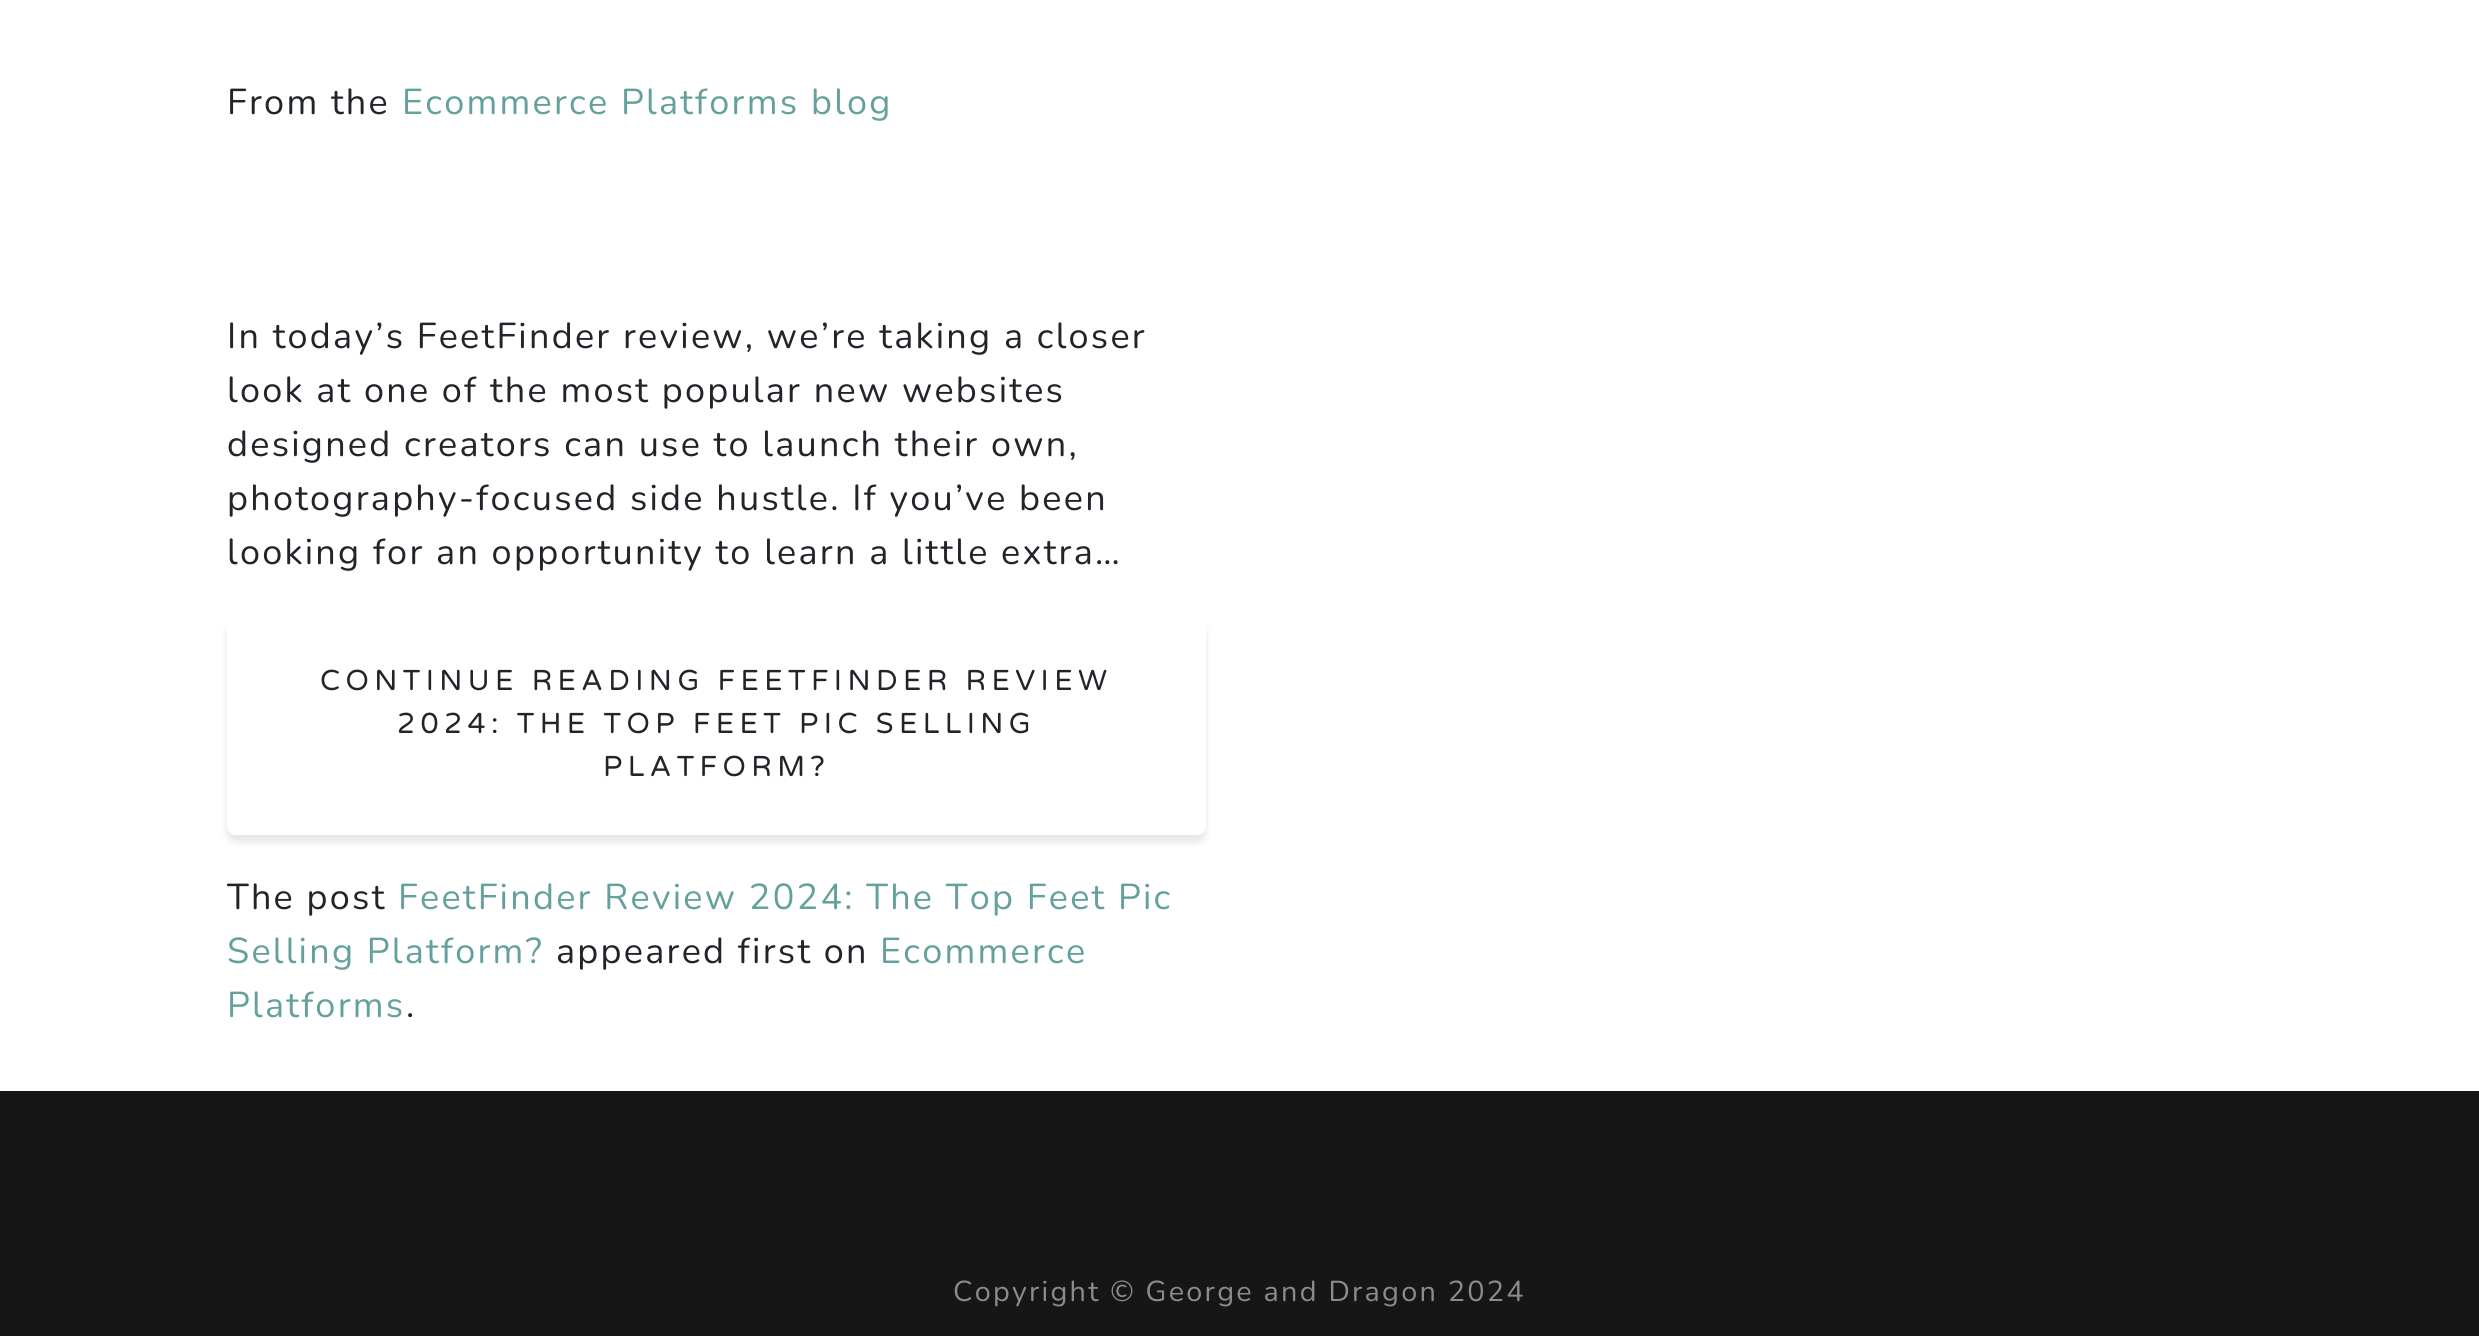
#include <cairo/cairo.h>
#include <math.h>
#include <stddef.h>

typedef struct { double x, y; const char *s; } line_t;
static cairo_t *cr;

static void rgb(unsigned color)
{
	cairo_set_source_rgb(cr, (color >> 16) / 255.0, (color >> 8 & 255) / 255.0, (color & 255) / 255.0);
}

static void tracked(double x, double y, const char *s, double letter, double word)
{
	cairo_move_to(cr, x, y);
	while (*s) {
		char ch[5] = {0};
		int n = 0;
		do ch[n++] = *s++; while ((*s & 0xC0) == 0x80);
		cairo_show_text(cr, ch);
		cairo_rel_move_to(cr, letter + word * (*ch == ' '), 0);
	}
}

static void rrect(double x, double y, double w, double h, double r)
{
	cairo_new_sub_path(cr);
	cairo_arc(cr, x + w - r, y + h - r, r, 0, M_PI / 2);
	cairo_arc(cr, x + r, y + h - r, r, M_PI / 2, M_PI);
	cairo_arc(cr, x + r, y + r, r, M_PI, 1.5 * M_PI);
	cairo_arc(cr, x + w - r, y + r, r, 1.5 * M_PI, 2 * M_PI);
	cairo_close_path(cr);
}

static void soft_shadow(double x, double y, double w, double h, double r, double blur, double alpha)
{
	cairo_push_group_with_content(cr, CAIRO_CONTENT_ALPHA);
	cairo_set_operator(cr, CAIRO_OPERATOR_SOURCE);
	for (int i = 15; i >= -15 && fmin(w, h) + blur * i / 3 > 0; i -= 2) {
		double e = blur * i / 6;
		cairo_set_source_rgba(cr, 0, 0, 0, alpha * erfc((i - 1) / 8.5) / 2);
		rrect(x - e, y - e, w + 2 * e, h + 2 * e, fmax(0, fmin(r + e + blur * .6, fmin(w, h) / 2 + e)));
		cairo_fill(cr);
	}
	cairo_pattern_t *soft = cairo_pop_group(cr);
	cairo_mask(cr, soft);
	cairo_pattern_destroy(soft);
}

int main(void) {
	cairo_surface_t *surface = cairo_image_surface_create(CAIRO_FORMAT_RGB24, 2479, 1336);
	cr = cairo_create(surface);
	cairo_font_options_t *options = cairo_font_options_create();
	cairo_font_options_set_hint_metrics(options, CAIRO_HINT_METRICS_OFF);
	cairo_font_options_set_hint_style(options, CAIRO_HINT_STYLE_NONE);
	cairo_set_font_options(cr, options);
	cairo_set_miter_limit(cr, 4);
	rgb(0xffffff);
	cairo_paint(cr);
	cairo_save(cr);
	cairo_set_fill_rule(cr, CAIRO_FILL_RULE_EVEN_ODD);
	cairo_new_path(cr);
	cairo_move_to(cr, 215, 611);
	cairo_line_to(cr, 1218, 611);
	cairo_line_to(cr, 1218, 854);
	cairo_line_to(cr, 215, 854);
	cairo_close_path(cr);
	cairo_move_to(cr, 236, 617);
	cairo_line_to(cr, 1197, 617);
	cairo_curve_to(cr, 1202, 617, 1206, 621, 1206, 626);
	cairo_line_to(cr, 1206, 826);
	cairo_curve_to(cr, 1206, 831, 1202, 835, 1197, 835);
	cairo_line_to(cr, 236, 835);
	cairo_curve_to(cr, 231, 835, 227, 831, 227, 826);
	cairo_line_to(cr, 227, 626);
	cairo_curve_to(cr, 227, 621, 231, 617, 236, 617);
	cairo_close_path(cr);
	cairo_clip(cr);
	rgb(0x000000);
	soft_shadow(227, 623, 979, 219, 9, 3.5, 0.1);
	cairo_restore(cr);
	rgb(0x161616);
	cairo_rectangle(cr, 0, 1091, 2479, 245);
	cairo_fill(cr);
	cairo_select_font_face(cr, "Nunito", CAIRO_FONT_SLANT_NORMAL, CAIRO_FONT_WEIGHT_NORMAL);
	cairo_set_font_size(cr, 36);
	rgb(0x212529);
	tracked(227, 114, "From the", 2.25, 0);
	rgb(0x64a19d);
	tracked(402, 114, "Ecommerce Platforms blog", 2.25, 0);
	rgb(0x212529);
	{
		static const line_t items[] = {
			{227, 348, "In today’s FeetFinder review, we’re taking a closer"},
			{227, 402, "look at one of the most popular new websites"},
			{227, 456, "designed creators can use to launch their own,"},
			{227, 510, "photography-focused side hustle. If you’ve been"},
			{227, 564, "looking for an opportunity to learn a little extra…"},
		};
		for (size_t i = 0; i < sizeof items / sizeof *items; i++) {
			tracked(items[i].x, items[i].y, items[i].s, 2.25, 0);
		}
	}
	cairo_select_font_face(cr, "Varela Round", CAIRO_FONT_SLANT_NORMAL, CAIRO_FONT_WEIGHT_NORMAL);
	cairo_set_font_size(cr, 28.8);
	{
		static const line_t items[] = {
			{320, 690, "CONTINUE READING FEETFINDER REVIEW"},
			{397, 733, "2024: THE TOP FEET PIC SELLING"},
			{603, 776, "PLATFORM?"},
		};
		for (size_t i = 0; i < sizeof items / sizeof *items; i++) {
			tracked(items[i].x, items[i].y, items[i].s, 5.4, 0);
		}
	}
	cairo_select_font_face(cr, "Nunito", CAIRO_FONT_SLANT_NORMAL, CAIRO_FONT_WEIGHT_NORMAL);
	cairo_set_font_size(cr, 36);
	tracked(227, 909, "The post", 2.25, 0);
	rgb(0x64a19d);
	tracked(398, 909, "FeetFinder Review 2024: The Top Feet Pic", 2.25, 0);
	tracked(227, 963, "Selling Platform?", 2.25, 0);
	rgb(0x212529);
	tracked(556, 963, "appeared first on", 2.25, 0);
	rgb(0x64a19d);
	tracked(880, 963, "Ecommerce", 2.25, 0);
	tracked(227, 1017, "Platforms", 2.25, 0);
	rgb(0x212529);
	tracked(406, 1017, ".", 2.25, 0);
	cairo_set_font_size(cr, 28.8);
	rgb(0x8b8b8b);
	tracked(953, 1301, "Copyright © George and Dragon 2024", 2.25, 0);
	cairo_surface_write_to_png(surface, "page.png");
	cairo_font_options_destroy(options);
	cairo_destroy(cr);
	cairo_surface_destroy(surface);
	return 0;
}
